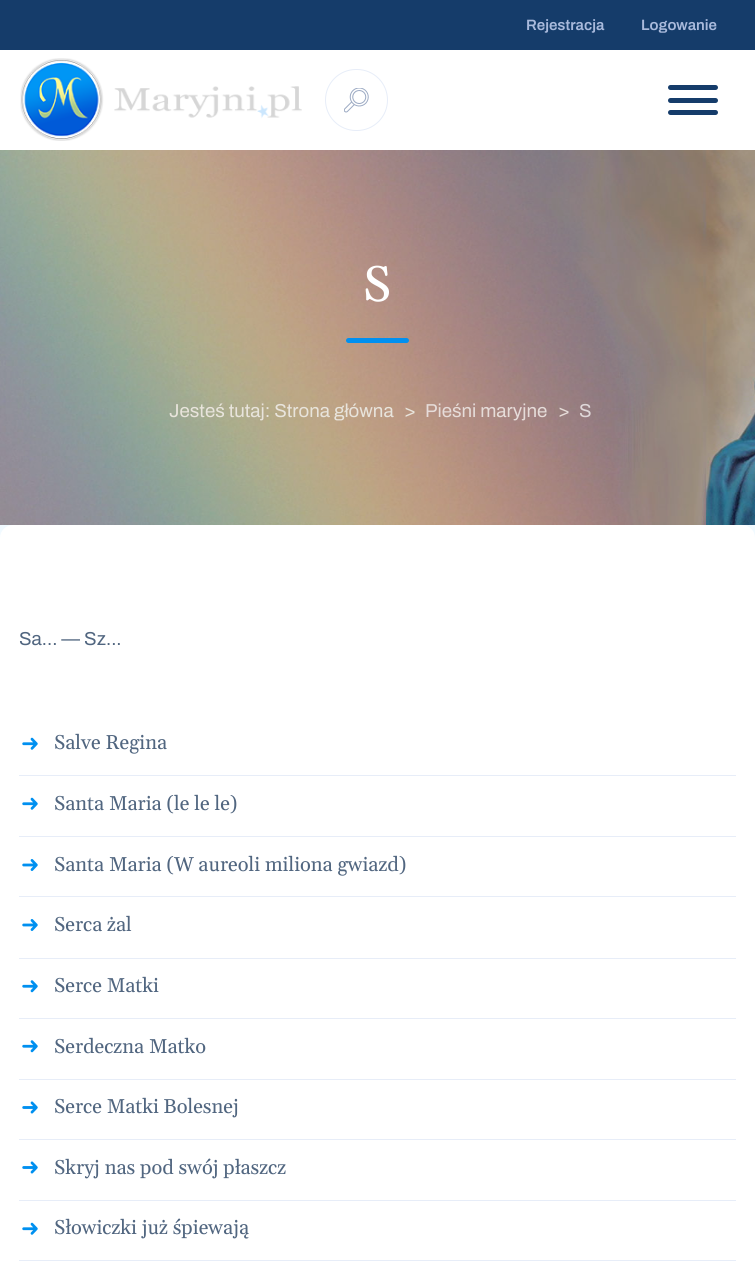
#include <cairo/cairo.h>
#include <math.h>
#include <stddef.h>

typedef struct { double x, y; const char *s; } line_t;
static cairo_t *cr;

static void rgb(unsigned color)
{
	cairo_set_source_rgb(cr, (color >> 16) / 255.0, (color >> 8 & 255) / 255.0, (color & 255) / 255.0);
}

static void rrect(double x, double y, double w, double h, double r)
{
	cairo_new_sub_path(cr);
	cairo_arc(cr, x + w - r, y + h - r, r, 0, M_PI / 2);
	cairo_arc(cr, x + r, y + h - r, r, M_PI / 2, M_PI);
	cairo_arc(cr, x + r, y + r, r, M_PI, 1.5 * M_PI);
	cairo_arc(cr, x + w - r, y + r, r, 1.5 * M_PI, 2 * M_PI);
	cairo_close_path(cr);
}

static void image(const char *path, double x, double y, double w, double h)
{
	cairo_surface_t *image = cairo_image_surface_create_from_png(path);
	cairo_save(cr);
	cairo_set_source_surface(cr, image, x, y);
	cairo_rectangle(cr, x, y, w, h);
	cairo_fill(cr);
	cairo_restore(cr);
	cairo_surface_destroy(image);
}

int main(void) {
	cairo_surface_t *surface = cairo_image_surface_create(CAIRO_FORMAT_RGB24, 755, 1266);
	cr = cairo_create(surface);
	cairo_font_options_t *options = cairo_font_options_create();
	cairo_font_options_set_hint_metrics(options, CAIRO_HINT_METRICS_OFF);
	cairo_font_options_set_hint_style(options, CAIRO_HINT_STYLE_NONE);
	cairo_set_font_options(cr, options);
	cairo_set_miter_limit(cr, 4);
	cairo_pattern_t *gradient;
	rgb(0xffffff);
	cairo_paint(cr);
	rgb(0x153c6a);
	cairo_rectangle(cr, 0, 0, 755, 50);
	cairo_fill(cr);
	image("img/1.png", 20, 58, 282, 83);
	rrect(325.5, 69.5, 62, 61, 30.5);
	rgb(0xe7edf8);
	cairo_set_line_width(cr, 1);
	cairo_stroke(cr);
	image("img/2.png", 344, 88, 25, 25);
	rgb(0x153c6a);
	rrect(668, 98, 50, 5, 2.5);
	cairo_fill(cr);
	rrect(668, 85, 50, 5, 2.5);
	cairo_fill(cr);
	rrect(668, 110, 50, 5, 2.5);
	cairo_fill(cr);
	image("img/3.png", 0, 150, 755, 375);
	rgb(0x0090f0);
	rrect(346, 338, 63, 5, 2.5);
	cairo_fill(cr);
	gradient = cairo_pattern_create_linear(377, 150, 378, 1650);
	cairo_pattern_add_color_stop_rgba(gradient, 0, 0.929, 0.976, 1, 1);
	cairo_pattern_add_color_stop_rgba(gradient, 1, 1, 1, 1, 1);
	cairo_set_source(cr, gradient);
	cairo_pattern_destroy(gradient);
	cairo_rectangle(cr, 0, 525, 755, 13);
	cairo_fill(cr);
	rgb(0xffffff);
	rrect(0, 525, 755, 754, 13);
	cairo_fill(cr);
	image("img/4.png", 22, 737, 16, 13);
	rgb(0xe7edf8);
	cairo_rectangle(cr, 19, 775, 717, 1);
	cairo_fill(cr);
	image("img/4.png", 22, 797, 16, 13);
	cairo_rectangle(cr, 19, 836, 717, 1);
	cairo_fill(cr);
	image("img/5.png", 22, 859, 16, 12);
	cairo_rectangle(cr, 19, 896, 717, 1);
	cairo_fill(cr);
	image("img/5.png", 22, 919, 16, 12);
	cairo_rectangle(cr, 19, 958, 717, 1);
	cairo_fill(cr);
	image("img/6.png", 22, 980, 16, 13);
	cairo_rectangle(cr, 19, 1018, 717, 1);
	cairo_fill(cr);
	image("img/6.png", 22, 1040, 16, 13);
	cairo_rectangle(cr, 19, 1079, 717, 1);
	cairo_fill(cr);
	image("img/7.png", 22, 1101, 16, 13);
	cairo_rectangle(cr, 19, 1139, 717, 1);
	cairo_fill(cr);
	image("img/7.png", 22, 1161, 16, 13);
	cairo_rectangle(cr, 19, 1200, 717, 1);
	cairo_fill(cr);
	image("img/4.png", 22, 1222, 16, 13);
	cairo_rectangle(cr, 19, 1260, 717, 1);
	cairo_fill(cr);
	cairo_select_font_face(cr, "Archivo SemiBold", CAIRO_FONT_SLANT_NORMAL, CAIRO_FONT_WEIGHT_NORMAL);
	cairo_set_font_size(cr, 15);
	rgb(0xa9badc);
	cairo_move_to(cr, 526, 30);
	cairo_show_text(cr, "Rejestracja");
	cairo_move_to(cr, 641, 30);
	cairo_show_text(cr, "Logowanie");
	cairo_select_font_face(cr, "Gelasio", CAIRO_FONT_SLANT_NORMAL, CAIRO_FONT_WEIGHT_NORMAL);
	cairo_set_font_size(cr, 50);
	rgb(0xffffff);
	cairo_move_to(cr, 363, 301);
	cairo_show_text(cr, "S");
	cairo_select_font_face(cr, "Archivo", CAIRO_FONT_SLANT_NORMAL, CAIRO_FONT_WEIGHT_NORMAL);
	cairo_set_font_size(cr, 18.75);
	rgb(0xe8e4dc);
	cairo_move_to(cr, 169, 417);
	cairo_show_text(cr, "Jesteś tutaj: Strona główna");
	cairo_move_to(cr, 404, 417);
	cairo_show_text(cr, ">");
	rgb(0xe6dcd9);
	cairo_move_to(cr, 425, 417);
	cairo_show_text(cr, "Pieśni maryjne");
	cairo_move_to(cr, 558, 417);
	cairo_show_text(cr, ">");
	rgb(0xdfd8d9);
	cairo_move_to(cr, 579, 417);
	cairo_show_text(cr, "S");
	rgb(0x516680);
	cairo_move_to(cr, 19, 645);
	cairo_show_text(cr, "Sa... — Sz...");
	cairo_select_font_face(cr, "Gelasio", CAIRO_FONT_SLANT_NORMAL, CAIRO_FONT_WEIGHT_NORMAL);
	cairo_set_font_size(cr, 20);
	{
		static const line_t items[] = {
			{54, 749, "Salve Regina"},
			{54, 810, "Santa Maria (le le le)"},
			{54, 871, "Santa Maria (W aureoli miliona gwiazd)"},
			{54, 931, "Serca żal"},
			{54, 992, "Serce Matki"},
			{54, 1053, "Serdeczna Matko"},
			{54, 1113, "Serce Matki Bolesnej"},
			{54, 1174, "Skryj nas pod swój płaszcz"},
			{54, 1234, "Słowiczki już śpiewają"},
		};
		for (size_t i = 0; i < sizeof items / sizeof *items; i++) {
			cairo_move_to(cr, items[i].x, items[i].y);
			cairo_show_text(cr, items[i].s);
		}
	}
	cairo_surface_write_to_png(surface, "page.png");
	cairo_font_options_destroy(options);
	cairo_destroy(cr);
	cairo_surface_destroy(surface);
	return 0;
}
